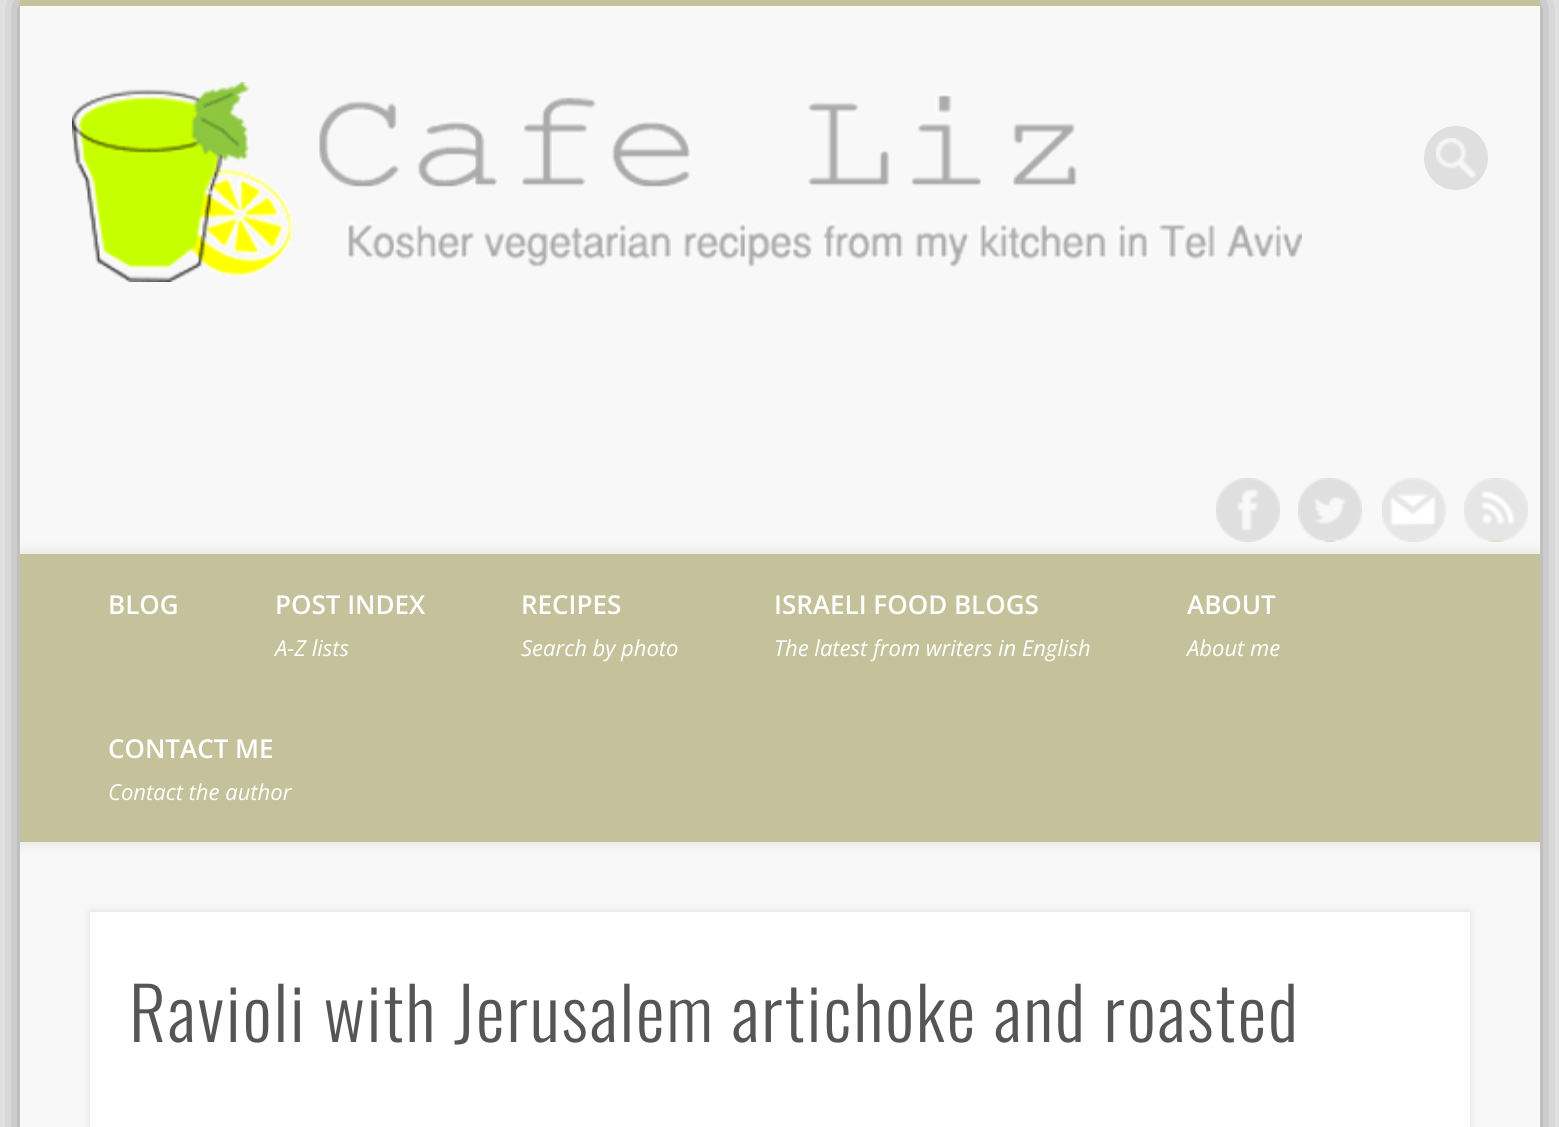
#include <cairo/cairo.h>
#include <math.h>
#include <stddef.h>

static cairo_t *cr;

static void rgb(unsigned color)
{
	cairo_set_source_rgb(cr, (color >> 16) / 255.0, (color >> 8 & 255) / 255.0, (color & 255) / 255.0);
}

static void tracked(double x, double y, const char *s, double letter, double word)
{
	cairo_move_to(cr, x, y);
	while (*s) {
		char ch[5] = {0};
		int n = 0;
		do ch[n++] = *s++; while ((*s & 0xC0) == 0x80);
		cairo_show_text(cr, ch);
		cairo_rel_move_to(cr, letter + word * (*ch == ' '), 0);
	}
}

static void rrect(double x, double y, double w, double h, double r)
{
	cairo_new_sub_path(cr);
	cairo_arc(cr, x + w - r, y + h - r, r, 0, M_PI / 2);
	cairo_arc(cr, x + r, y + h - r, r, M_PI / 2, M_PI);
	cairo_arc(cr, x + r, y + r, r, M_PI, 1.5 * M_PI);
	cairo_arc(cr, x + w - r, y + r, r, 1.5 * M_PI, 2 * M_PI);
	cairo_close_path(cr);
}

static void soft_shadow(double x, double y, double w, double h, double r, double blur, double alpha)
{
	cairo_push_group_with_content(cr, CAIRO_CONTENT_ALPHA);
	cairo_set_operator(cr, CAIRO_OPERATOR_SOURCE);
	for (int i = 15; i >= -15 && fmin(w, h) + blur * i / 3 > 0; i -= 2) {
		double e = blur * i / 6;
		cairo_set_source_rgba(cr, 0, 0, 0, alpha * erfc((i - 1) / 8.5) / 2);
		rrect(x - e, y - e, w + 2 * e, h + 2 * e, fmax(0, fmin(r + e + blur * .6, fmin(w, h) / 2 + e)));
		cairo_fill(cr);
	}
	cairo_pattern_t *soft = cairo_pop_group(cr);
	cairo_mask(cr, soft);
	cairo_pattern_destroy(soft);
}

static void image(const char *path, double x, double y, double w, double h)
{
	cairo_surface_t *image = cairo_image_surface_create_from_png(path);
	cairo_save(cr);
	cairo_set_source_surface(cr, image, x, y);
	cairo_rectangle(cr, x, y, w, h);
	cairo_fill(cr);
	cairo_restore(cr);
	cairo_surface_destroy(image);
}

int main(void) {
	cairo_surface_t *surface = cairo_image_surface_create(CAIRO_FORMAT_RGB24, 1559, 1127);
	cr = cairo_create(surface);
	cairo_font_options_t *options = cairo_font_options_create();
	cairo_font_options_set_hint_metrics(options, CAIRO_HINT_METRICS_OFF);
	cairo_font_options_set_hint_style(options, CAIRO_HINT_STYLE_NONE);
	cairo_set_font_options(cr, options);
	cairo_set_miter_limit(cr, 4);
	rgb(0xefefef);
	cairo_paint(cr);
	rgb(0x000000);
	soft_shadow(20, 0, 1520, 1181, 0, 18, 0.4);
	rgb(0xf8f8f8);
	cairo_rectangle(cr, 20, 6, 1520, 1121);
	cairo_fill(cr);
	rgb(0xc5c29b);
	cairo_rectangle(cr, 20, 0, 1520, 6);
	cairo_fill(cr);
	image("img/1.png", 72, 82, 1230, 200);
	rgb(0xdfdfdf);
	cairo_arc(cr, 1456, 158, 32, 0, 2 * M_PI);
	cairo_fill(cr);
	image("img/2.png", 1436, 138, 40, 40);
	image("img/3.png", 1216, 478, 64, 64);
	image("img/4.png", 1298, 478, 64, 64);
	image("img/5.png", 1382, 478, 64, 64);
	image("img/6.png", 1464, 478, 64, 64);
	cairo_save(cr);
	cairo_rectangle(cr, 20, 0, 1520, 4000);
	cairo_clip(cr);
	rgb(0x000000);
	soft_shadow(20, 554, 1520, 288, 0, 7, 0.1);
	cairo_restore(cr);
	rgb(0xc5c29b);
	cairo_rectangle(cr, 20, 554, 1520, 288);
	cairo_fill(cr);
	rgb(0x000000);
	soft_shadow(90, 912, 1380, 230, 0, 5, 0.1);
	rgb(0xffffff);
	cairo_rectangle(cr, 90, 912, 1380, 215);
	cairo_fill(cr);
	cairo_select_font_face(cr, "Open Sans SemiBold", CAIRO_FONT_SLANT_NORMAL, CAIRO_FONT_WEIGHT_NORMAL);
	cairo_set_font_size(cr, 26);
	cairo_move_to(cr, 108, 614);
	cairo_show_text(cr, "BLOG");
	cairo_move_to(cr, 275, 614);
	cairo_show_text(cr, "POST INDEX");
	cairo_select_font_face(cr, "Open Sans", CAIRO_FONT_SLANT_ITALIC, CAIRO_FONT_WEIGHT_NORMAL);
	cairo_set_font_size(cr, 22);
	cairo_move_to(cr, 275, 656);
	cairo_show_text(cr, "A-Z lists");
	cairo_select_font_face(cr, "Open Sans SemiBold", CAIRO_FONT_SLANT_NORMAL, CAIRO_FONT_WEIGHT_NORMAL);
	cairo_set_font_size(cr, 26);
	cairo_move_to(cr, 521, 614);
	cairo_show_text(cr, "RECIPES");
	cairo_select_font_face(cr, "Open Sans", CAIRO_FONT_SLANT_ITALIC, CAIRO_FONT_WEIGHT_NORMAL);
	cairo_set_font_size(cr, 22);
	cairo_move_to(cr, 521, 656);
	cairo_show_text(cr, "Search by photo");
	cairo_select_font_face(cr, "Open Sans SemiBold", CAIRO_FONT_SLANT_NORMAL, CAIRO_FONT_WEIGHT_NORMAL);
	cairo_set_font_size(cr, 26);
	cairo_move_to(cr, 774, 614);
	cairo_show_text(cr, "ISRAELI FOOD BLOGS");
	cairo_select_font_face(cr, "Open Sans", CAIRO_FONT_SLANT_ITALIC, CAIRO_FONT_WEIGHT_NORMAL);
	cairo_set_font_size(cr, 22);
	cairo_move_to(cr, 774, 656);
	cairo_show_text(cr, "The latest from writers in English");
	cairo_select_font_face(cr, "Open Sans SemiBold", CAIRO_FONT_SLANT_NORMAL, CAIRO_FONT_WEIGHT_NORMAL);
	cairo_set_font_size(cr, 26);
	cairo_move_to(cr, 1187, 614);
	cairo_show_text(cr, "ABOUT");
	cairo_select_font_face(cr, "Open Sans", CAIRO_FONT_SLANT_ITALIC, CAIRO_FONT_WEIGHT_NORMAL);
	cairo_set_font_size(cr, 22);
	cairo_move_to(cr, 1187, 656);
	cairo_show_text(cr, "About me");
	cairo_select_font_face(cr, "Open Sans SemiBold", CAIRO_FONT_SLANT_NORMAL, CAIRO_FONT_WEIGHT_NORMAL);
	cairo_set_font_size(cr, 26);
	cairo_move_to(cr, 108, 758);
	cairo_show_text(cr, "CONTACT ME");
	cairo_select_font_face(cr, "Open Sans", CAIRO_FONT_SLANT_ITALIC, CAIRO_FONT_WEIGHT_NORMAL);
	cairo_set_font_size(cr, 22);
	cairo_move_to(cr, 108, 800);
	cairo_show_text(cr, "Contact the author");
	cairo_select_font_face(cr, "Oswald Light", CAIRO_FONT_SLANT_NORMAL, CAIRO_FONT_WEIGHT_NORMAL);
	cairo_set_font_size(cr, 72);
	rgb(0x555555);
	tracked(129, 1042, "Ravioli with Jerusalem artichoke and roasted", 2, 0);
	cairo_surface_write_to_png(surface, "page.png");
	cairo_font_options_destroy(options);
	cairo_destroy(cr);
	cairo_surface_destroy(surface);
	return 0;
}
